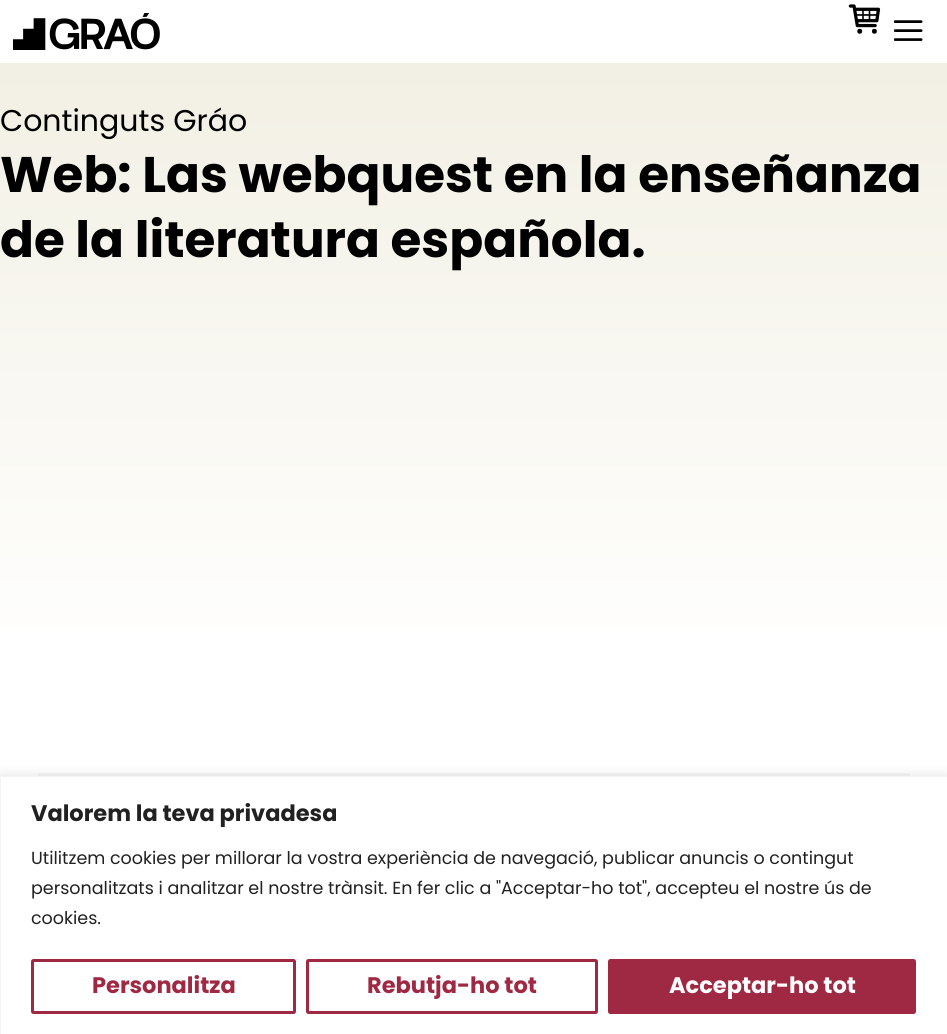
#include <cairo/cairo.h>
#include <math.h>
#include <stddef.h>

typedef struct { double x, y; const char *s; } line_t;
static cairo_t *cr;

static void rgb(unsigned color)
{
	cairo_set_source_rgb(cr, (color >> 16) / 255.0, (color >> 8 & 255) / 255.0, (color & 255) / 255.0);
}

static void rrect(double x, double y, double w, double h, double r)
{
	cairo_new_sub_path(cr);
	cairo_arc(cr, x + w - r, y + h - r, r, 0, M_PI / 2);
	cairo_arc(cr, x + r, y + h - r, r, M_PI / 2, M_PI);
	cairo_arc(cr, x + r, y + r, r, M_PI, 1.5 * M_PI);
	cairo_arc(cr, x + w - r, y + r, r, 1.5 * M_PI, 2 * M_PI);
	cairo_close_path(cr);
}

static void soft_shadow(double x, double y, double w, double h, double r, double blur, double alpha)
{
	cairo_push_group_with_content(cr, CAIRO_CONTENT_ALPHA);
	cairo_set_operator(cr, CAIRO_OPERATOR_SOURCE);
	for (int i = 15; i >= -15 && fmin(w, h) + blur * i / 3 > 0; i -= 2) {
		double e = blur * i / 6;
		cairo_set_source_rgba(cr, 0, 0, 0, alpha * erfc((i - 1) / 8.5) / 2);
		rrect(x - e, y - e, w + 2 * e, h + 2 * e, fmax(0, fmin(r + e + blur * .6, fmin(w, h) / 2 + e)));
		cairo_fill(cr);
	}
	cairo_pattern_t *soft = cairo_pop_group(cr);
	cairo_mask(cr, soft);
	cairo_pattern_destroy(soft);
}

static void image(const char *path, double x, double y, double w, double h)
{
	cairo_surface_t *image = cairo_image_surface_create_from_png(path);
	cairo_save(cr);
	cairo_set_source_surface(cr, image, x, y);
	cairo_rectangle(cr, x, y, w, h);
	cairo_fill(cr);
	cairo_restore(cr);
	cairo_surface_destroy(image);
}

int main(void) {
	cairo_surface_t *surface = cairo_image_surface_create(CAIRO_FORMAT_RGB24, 947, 1034);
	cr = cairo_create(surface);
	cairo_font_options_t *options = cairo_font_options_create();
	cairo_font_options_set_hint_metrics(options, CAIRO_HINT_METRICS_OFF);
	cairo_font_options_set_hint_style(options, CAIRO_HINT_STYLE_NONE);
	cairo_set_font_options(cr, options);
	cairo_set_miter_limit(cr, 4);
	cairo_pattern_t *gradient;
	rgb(0xffffff);
	cairo_paint(cr);
	image("img/1.png", 13, 13, 147, 37);
	image("img/2.png", 848, 4, 33, 30);
	image("img/3.png", 894, 20, 29, 21);
	gradient = cairo_pattern_create_linear(474, 62, 474, 685);
	cairo_pattern_add_color_stop_rgba(gradient, 0, 0.949, 0.941, 0.894, 1);
	cairo_pattern_add_color_stop_rgba(gradient, 1, 1, 1, 1, 1);
	cairo_set_source(cr, gradient);
	cairo_pattern_destroy(gradient);
	cairo_rectangle(cr, 0, 63, 947, 564);
	cairo_fill(cr);
	rgb(0xf6f6f6);
	cairo_rectangle(cr, 38, 773, 872, 3);
	cairo_fill(cr);
	rgb(0xacabab);
	soft_shadow(0, 775, 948, 259, 0, 6, 0.3);
	rgb(0xffffff);
	cairo_rectangle(cr, 0.5, 776.5, 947, 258);
	cairo_fill_preserve(cr);
	rgb(0xf4f4f4);
	cairo_set_line_width(cr, 1);
	cairo_stroke(cr);
	rrect(32.5, 960.5, 262, 52, 1);
	rgb(0x9f2943);
	cairo_set_line_width(cr, 3);
	cairo_stroke(cr);
	rrect(307.5, 960.5, 289, 52, 1);
	cairo_stroke(cr);
	rrect(609.5, 960.5, 305, 52, 1);
	cairo_fill_preserve(cr);
	cairo_stroke(cr);
	cairo_select_font_face(cr, "Poppins", CAIRO_FONT_SLANT_NORMAL, CAIRO_FONT_WEIGHT_NORMAL);
	cairo_set_font_size(cr, 30);
	rgb(0x000000);
	cairo_move_to(cr, 0, 131);
	cairo_show_text(cr, "Continguts Gráo");
	cairo_select_font_face(cr, "Poppins", CAIRO_FONT_SLANT_NORMAL, CAIRO_FONT_WEIGHT_BOLD);
	cairo_set_font_size(cr, 50);
	cairo_move_to(cr, 0, 192);
	cairo_show_text(cr, "Web: Las webquest en la enseñanza");
	cairo_move_to(cr, 0, 257);
	cairo_show_text(cr, "de la literatura española.");
	cairo_set_font_size(cr, 22.5);
	rgb(0x212121);
	cairo_move_to(cr, 31, 821);
	cairo_show_text(cr, "Valorem la teva privadesa");
	cairo_select_font_face(cr, "Poppins", CAIRO_FONT_SLANT_NORMAL, CAIRO_FONT_WEIGHT_NORMAL);
	cairo_set_font_size(cr, 17.5);
	{
		static const line_t items[] = {
			{31, 864, "Utilitzem cookies per millorar la vostra experiència de navegació, publicar anuncis o contingut"},
			{31, 894, "personalitzats i analitzar el nostre trànsit. En fer clic a \"Acceptar-ho tot\", accepteu el nostre ús de"},
			{31, 924, "cookies."},
		};
		for (size_t i = 0; i < sizeof items / sizeof *items; i++) {
			cairo_move_to(cr, items[i].x, items[i].y);
			cairo_show_text(cr, items[i].s);
		}
	}
	cairo_select_font_face(cr, "Poppins", CAIRO_FONT_SLANT_NORMAL, CAIRO_FONT_WEIGHT_BOLD);
	cairo_set_font_size(cr, 22.5);
	rgb(0x9f2943);
	cairo_move_to(cr, 92, 993);
	cairo_show_text(cr, "Personalitza");
	cairo_move_to(cr, 367, 993);
	cairo_show_text(cr, "Rebutja-ho tot");
	rgb(0xffffff);
	cairo_move_to(cr, 669, 993);
	cairo_show_text(cr, "Acceptar-ho tot");
	cairo_surface_write_to_png(surface, "page.png");
	cairo_font_options_destroy(options);
	cairo_destroy(cr);
	cairo_surface_destroy(surface);
	return 0;
}
